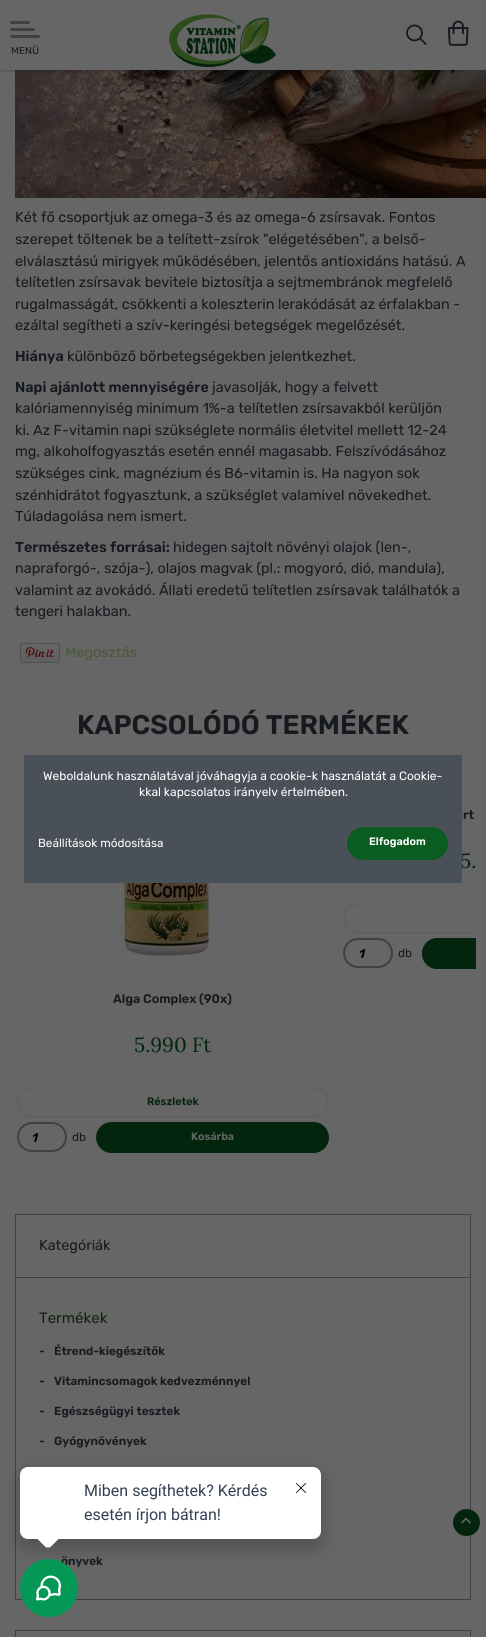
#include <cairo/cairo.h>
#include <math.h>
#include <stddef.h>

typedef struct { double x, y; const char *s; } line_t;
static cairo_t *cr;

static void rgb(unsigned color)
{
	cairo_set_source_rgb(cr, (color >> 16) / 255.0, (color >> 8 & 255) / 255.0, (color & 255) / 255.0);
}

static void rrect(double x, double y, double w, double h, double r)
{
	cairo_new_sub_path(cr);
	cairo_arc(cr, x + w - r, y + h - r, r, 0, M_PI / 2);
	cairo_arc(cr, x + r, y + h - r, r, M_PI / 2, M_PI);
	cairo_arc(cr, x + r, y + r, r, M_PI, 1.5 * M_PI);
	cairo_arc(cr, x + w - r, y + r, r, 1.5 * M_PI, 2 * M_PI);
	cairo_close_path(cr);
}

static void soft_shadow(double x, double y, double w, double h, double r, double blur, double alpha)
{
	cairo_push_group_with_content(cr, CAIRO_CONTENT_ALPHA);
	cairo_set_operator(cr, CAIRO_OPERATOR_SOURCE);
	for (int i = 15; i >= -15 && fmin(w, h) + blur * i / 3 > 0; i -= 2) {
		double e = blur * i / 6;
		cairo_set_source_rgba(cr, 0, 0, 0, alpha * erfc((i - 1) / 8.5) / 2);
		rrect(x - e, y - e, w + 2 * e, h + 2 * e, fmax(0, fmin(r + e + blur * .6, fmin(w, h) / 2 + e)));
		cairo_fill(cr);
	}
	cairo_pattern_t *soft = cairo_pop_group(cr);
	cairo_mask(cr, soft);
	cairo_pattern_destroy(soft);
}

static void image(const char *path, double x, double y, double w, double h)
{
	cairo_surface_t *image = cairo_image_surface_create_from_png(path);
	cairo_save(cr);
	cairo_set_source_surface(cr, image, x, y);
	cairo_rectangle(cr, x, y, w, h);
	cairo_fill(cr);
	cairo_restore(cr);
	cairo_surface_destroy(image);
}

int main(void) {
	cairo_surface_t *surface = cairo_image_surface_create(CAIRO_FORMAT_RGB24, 486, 1637);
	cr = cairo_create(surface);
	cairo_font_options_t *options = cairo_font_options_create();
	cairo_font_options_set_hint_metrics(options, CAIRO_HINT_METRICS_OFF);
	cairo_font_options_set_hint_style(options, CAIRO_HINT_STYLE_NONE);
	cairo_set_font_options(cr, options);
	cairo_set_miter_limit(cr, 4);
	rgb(0x666666);
	cairo_paint(cr);
	image("img/4.png", 15, 70, 471, 128);
	rgb(0x000000);
	soft_shadow(0, 1, 486, 70, 0, 1.5, 0.2);
	rgb(0x666666);
	cairo_rectangle(cr, 0, 0, 486, 70);
	cairo_fill(cr);
	image("img/1.png", 169, 14, 107, 53);
	image("img/2.png", 406, 24, 21, 21);
	image("img/3.png", 448, 20, 21, 26);
	rgb(0x3e4045);
	rrect(10, 35, 30, 3, 1.5);
	cairo_fill(cr);
	rrect(10, 21, 20, 3, 1.5);
	cairo_fill(cr);
	rrect(10, 28, 25, 3, 1.5);
	cairo_fill(cr);
	image("img/5.png", 20, 643, 40, 20);
	cairo_save(cr);
	cairo_rectangle(cr, 10, 777, 466, 405);
	cairo_clip(cr);
	rrect(344, 904, 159, 29, 14.5);
	rgb(0x606162);
	cairo_stroke(cr);
	cairo_restore(cr);
	rrect(344, 939, 48, 28, 14);
	cairo_stroke(cr);
	rgb(0x04250d);
	cairo_new_path(cr);
	cairo_move_to(cr, 437.5, 938);
	cairo_line_to(cr, 476, 938);
	cairo_line_to(cr, 476, 969);
	cairo_line_to(cr, 437.5, 969);
	cairo_curve_to(cr, 429, 969, 422, 962, 422, 953.5);
	cairo_curve_to(cr, 422, 945, 429, 938, 437.5, 938);
	cairo_close_path(cr);
	cairo_fill(cr);
	cairo_save(cr);
	cairo_rectangle(cr, 10, 777, 466, 405);
	cairo_clip(cr);
	rrect(423, 939, 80, 29, 14.5);
	cairo_stroke(cr);
	cairo_restore(cr);
	image("img/6.png", 119, 883, 94, 73);
	rrect(18, 1088, 310, 29, 14.5);
	rgb(0x606162);
	cairo_stroke(cr);
	rrect(18, 1123, 48, 28, 14);
	rgb(0x3e4045);
	cairo_stroke(cr);
	rgb(0x04250d);
	rrect(97, 1123, 231, 29, 14.5);
	cairo_fill_preserve(cr);
	cairo_stroke(cr);
	cairo_rectangle(cr, 15.5, 1214.5, 455, 385);
	rgb(0x3e4045);
	cairo_set_line_width(cr, 1);
	cairo_stroke(cr);
	cairo_rectangle(cr, 16, 1277, 454, 1);
	cairo_fill(cr);
	cairo_rectangle(cr, 15.5, 1630.5, 455, 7);
	cairo_stroke(cr);
	rgb(0x04250d);
	cairo_arc(cr, 466.5, 1522.5, 13.5, 0, 2 * M_PI);
	cairo_fill(cr);
	image("img/7.png", 461, 1517, 10, 7);
	cairo_select_font_face(cr, "Rubik", CAIRO_FONT_SLANT_NORMAL, CAIRO_FONT_WEIGHT_NORMAL);
	cairo_set_font_size(cr, 10);
	rgb(0x161a1f);
	cairo_move_to(cr, 11, 54);
	cairo_show_text(cr, "MENÜ");
	cairo_set_font_size(cr, 14.4);
	{
		static const line_t items[] = {
			{15, 222, "Két fő csoportjuk az omega-3 és az omega-6 zsírsavak. Fontos"},
			{15, 244, "szerepet töltenek be a telített-zsírok \"elégetésében\", a belső-"},
			{15, 266, "elválasztású mirigyek működésében, jelentős antioxidáns hatású. A"},
			{15, 287, "telítetlen zsírsavak bevitele biztosítja a sejtmembránok megfelelő"},
			{15, 309, "rugalmasságát, csökkenti a koleszterin lerakódását az érfalakban -"},
			{15, 330, "ezáltal segítheti a szív-keringési betegségek megelőzését."},
		};
		for (size_t i = 0; i < sizeof items / sizeof *items; i++) {
			cairo_move_to(cr, items[i].x, items[i].y);
			cairo_show_text(cr, items[i].s);
		}
	}
	cairo_select_font_face(cr, "Rubik SemiBold", CAIRO_FONT_SLANT_NORMAL, CAIRO_FONT_WEIGHT_NORMAL);
	cairo_move_to(cr, 15, 361);
	cairo_show_text(cr, "Hiánya");
	cairo_select_font_face(cr, "Rubik", CAIRO_FONT_SLANT_NORMAL, CAIRO_FONT_WEIGHT_NORMAL);
	cairo_move_to(cr, 67, 361);
	cairo_show_text(cr, "különböző bőrbetegségekben jelentkezhet.");
	cairo_select_font_face(cr, "Rubik SemiBold", CAIRO_FONT_SLANT_NORMAL, CAIRO_FONT_WEIGHT_NORMAL);
	cairo_move_to(cr, 15, 392);
	cairo_show_text(cr, "Napi ajánlott mennyiségére");
	cairo_select_font_face(cr, "Rubik", CAIRO_FONT_SLANT_NORMAL, CAIRO_FONT_WEIGHT_NORMAL);
	{
		static const line_t items[] = {
			{212, 392, "javasolják, hogy a felvett"},
			{15, 413, "kalóriamennyiség minimum 1%-a telítetlen zsírsavakból kerüljön"},
			{15, 435, "ki. Az F-vitamin napi szükséglete normális életvitel mellett 12-24"},
			{15, 456, "mg, alkoholfogyasztás esetén ennél magasabb. Felszívódásához"},
			{15, 478, "szükséges cink, magnézium és B6-vitamin is. Ha nagyon sok"},
			{15, 500, "szénhidrátot fogyasztunk, a szükséglet valamivel növekedhet."},
			{15, 521, "Túladagolása nem ismert."},
		};
		for (size_t i = 0; i < sizeof items / sizeof *items; i++) {
			cairo_move_to(cr, items[i].x, items[i].y);
			cairo_show_text(cr, items[i].s);
		}
	}
	cairo_select_font_face(cr, "Rubik SemiBold", CAIRO_FONT_SLANT_NORMAL, CAIRO_FONT_WEIGHT_NORMAL);
	cairo_move_to(cr, 15, 552);
	cairo_show_text(cr, "Természetes forrásai:");
	cairo_select_font_face(cr, "Rubik", CAIRO_FONT_SLANT_NORMAL, CAIRO_FONT_WEIGHT_NORMAL);
	{
		static const line_t items[] = {
			{173, 552, "hidegen sajtolt növényi olajok (len-,"},
			{15, 573, "napraforgó-, szója-), olajos magvak (pl.: mogyoró, dió, mandula),"},
			{15, 595, "valamint az avokádó. Állati eredetű telítetlen zsírsavak találhatók a"},
			{15, 616, "tengeri halakban."},
		};
		for (size_t i = 0; i < sizeof items / sizeof *items; i++) {
			cairo_move_to(cr, items[i].x, items[i].y);
			cairo_show_text(cr, items[i].s);
		}
	}
	rgb(0x4b573a);
	cairo_move_to(cr, 65, 657);
	cairo_show_text(cr, "Megosztás");
	cairo_select_font_face(cr, "Rubik SemiBold", CAIRO_FONT_SLANT_NORMAL, CAIRO_FONT_WEIGHT_NORMAL);
	cairo_set_font_size(cr, 27);
	rgb(0x161a1f);
	cairo_move_to(cr, 77, 734);
	cairo_show_text(cr, "KAPCSOLÓDÓ TERMÉKEK");
	cairo_set_font_size(cr, 12.5);
	cairo_move_to(cr, 463, 819);
	cairo_show_text(cr, "rt");
	cairo_select_font_face(cr, "Lora", CAIRO_FONT_SLANT_NORMAL, CAIRO_FONT_WEIGHT_NORMAL);
	cairo_set_font_size(cr, 20.5);
	rgb(0x04250d);
	cairo_move_to(cr, 460, 868);
	cairo_show_text(cr, "5.");
	cairo_select_font_face(cr, "Rubik SemiBold", CAIRO_FONT_SLANT_ITALIC, CAIRO_FONT_WEIGHT_NORMAL);
	cairo_set_font_size(cr, 12.5);
	rgb(0x000000);
	cairo_move_to(cr, 358, 958);
	cairo_show_text(cr, "1");
	cairo_select_font_face(cr, "Rubik", CAIRO_FONT_SLANT_NORMAL, CAIRO_FONT_WEIGHT_NORMAL);
	cairo_set_font_size(cr, 11.75);
	rgb(0x161a1f);
	cairo_move_to(cr, 398, 957);
	cairo_show_text(cr, "db");
	cairo_select_font_face(cr, "Rubik SemiBold", CAIRO_FONT_SLANT_NORMAL, CAIRO_FONT_WEIGHT_NORMAL);
	cairo_set_font_size(cr, 12.5);
	cairo_move_to(cr, 113, 1003);
	cairo_show_text(cr, "Alga Complex (90x)");
	cairo_select_font_face(cr, "Lora", CAIRO_FONT_SLANT_NORMAL, CAIRO_FONT_WEIGHT_NORMAL);
	cairo_set_font_size(cr, 20.5);
	rgb(0x04250d);
	cairo_move_to(cr, 134, 1052);
	cairo_show_text(cr, "5.990 Ft");
	cairo_select_font_face(cr, "Rubik SemiBold", CAIRO_FONT_SLANT_NORMAL, CAIRO_FONT_WEIGHT_NORMAL);
	cairo_set_font_size(cr, 10.75);
	cairo_move_to(cr, 147, 1105);
	cairo_show_text(cr, "Részletek");
	cairo_select_font_face(cr, "Rubik SemiBold", CAIRO_FONT_SLANT_ITALIC, CAIRO_FONT_WEIGHT_NORMAL);
	cairo_set_font_size(cr, 12.5);
	rgb(0x000000);
	cairo_move_to(cr, 31, 1142);
	cairo_show_text(cr, "1");
	cairo_select_font_face(cr, "Rubik", CAIRO_FONT_SLANT_NORMAL, CAIRO_FONT_WEIGHT_NORMAL);
	cairo_set_font_size(cr, 11.75);
	rgb(0x161a1f);
	cairo_move_to(cr, 72, 1141);
	cairo_show_text(cr, "db");
	cairo_select_font_face(cr, "Rubik SemiBold", CAIRO_FONT_SLANT_NORMAL, CAIRO_FONT_WEIGHT_NORMAL);
	cairo_set_font_size(cr, 10.75);
	rgb(0x666666);
	cairo_move_to(cr, 191, 1140);
	cairo_show_text(cr, "Kosárba");
	cairo_select_font_face(cr, "Rubik", CAIRO_FONT_SLANT_NORMAL, CAIRO_FONT_WEIGHT_NORMAL);
	cairo_set_font_size(cr, 14.4);
	rgb(0x161a1f);
	cairo_move_to(cr, 39, 1250);
	cairo_show_text(cr, "Kategóriák");
	cairo_set_font_size(cr, 15);
	rgb(0x10240d);
	cairo_move_to(cr, 39, 1323);
	cairo_show_text(cr, "Termékek");
	cairo_select_font_face(cr, "Rubik SemiBold", CAIRO_FONT_SLANT_NORMAL, CAIRO_FONT_WEIGHT_NORMAL);
	cairo_set_font_size(cr, 11.75);
	rgb(0x161a1f);
	{
		static const line_t items[] = {
			{39, 1355, "-"},
			{54, 1355, "Étrend-kiegészítők"},
			{39, 1385, "-"},
			{54, 1385, "Vitamincsomagok kedvezménnyel"},
			{39, 1415, "-"},
			{54, 1415, "Egészségügyi tesztek"},
			{39, 1445, "-"},
			{54, 1445, "Gyógynövények"},
			{61, 1565, "önyvek"},
		};
		for (size_t i = 0; i < sizeof items / sizeof *items; i++) {
			cairo_move_to(cr, items[i].x, items[i].y);
			cairo_show_text(cr, items[i].s);
		}
	}
	rgb(0x495057);
	cairo_rectangle(cr, 24, 755, 438, 128);
	cairo_fill(cr);
	cairo_select_font_face(cr, "Rubik", CAIRO_FONT_SLANT_NORMAL, CAIRO_FONT_WEIGHT_NORMAL);
	cairo_set_font_size(cr, 12);
	rgb(0xffffff);
	cairo_move_to(cr, 43, 780);
	cairo_show_text(cr, "Weboldalunk használatával jóváhagyja a cookie-k használatát a Cookie-");
	cairo_move_to(cr, 139, 796);
	cairo_show_text(cr, "kkal kapcsolatos irányelv értelmében.");
	cairo_set_font_size(cr, 11.75);
	cairo_move_to(cr, 38, 847);
	cairo_show_text(cr, "Beállítások módosítása");
	rgb(0x0a5c20);
	rrect(348, 828, 99, 31, 15.5);
	cairo_fill_preserve(cr);
	cairo_set_line_width(cr, 2);
	cairo_stroke(cr);
	cairo_select_font_face(cr, "Rubik SemiBold", CAIRO_FONT_SLANT_NORMAL, CAIRO_FONT_WEIGHT_NORMAL);
	cairo_set_font_size(cr, 10.75);
	rgb(0xffffff);
	cairo_move_to(cr, 369, 845);
	cairo_show_text(cr, "Elfogadom");
	rgb(0x039855);
	cairo_new_path(cr);
	cairo_arc(cr, 49, 1588, 29, 0, 2 * M_PI);
	cairo_fill(cr);
	image("img/9.png", 36, 1575, 25, 26);
	rgb(0x000000);
	soft_shadow(20, 1475, 301, 72, 8, 10, 0.24);
	rgb(0xffffff);
	rrect(20, 1467, 301, 72, 8);
	cairo_fill(cr);
	image("img/8.png", 296, 1483, 10, 10);
	cairo_select_font_face(cr, "Roboto", CAIRO_FONT_SLANT_NORMAL, CAIRO_FONT_WEIGHT_NORMAL);
	cairo_set_font_size(cr, 16);
	rgb(0x344054);
	cairo_move_to(cr, 84, 1520);
	cairo_show_text(cr, "esetén írjon bátran!");
	cairo_move_to(cr, 84, 1496);
	cairo_show_text(cr, "Miben segíthetek? Kérdés");
	rgb(0xffffff);
	cairo_new_path(cr);
	cairo_move_to(cr, 51, 1523.5);
	cairo_line_to(cr, 59.5, 1532);
	cairo_curve_to(cr, 61, 1533.5, 61, 1536.5, 59.5, 1538);
	cairo_line_to(cr, 51, 1546.5);
	cairo_curve_to(cr, 49.5, 1548, 46.5, 1548, 45, 1546.5);
	cairo_line_to(cr, 36.5, 1538);
	cairo_curve_to(cr, 35, 1536.5, 35, 1533.5, 36.5, 1532);
	cairo_line_to(cr, 45, 1523.5);
	cairo_curve_to(cr, 46.5, 1522, 49.5, 1522, 51, 1523.5);
	cairo_close_path(cr);
	cairo_fill(cr);
	cairo_surface_write_to_png(surface, "page.png");
	cairo_font_options_destroy(options);
	cairo_destroy(cr);
	cairo_surface_destroy(surface);
	return 0;
}
